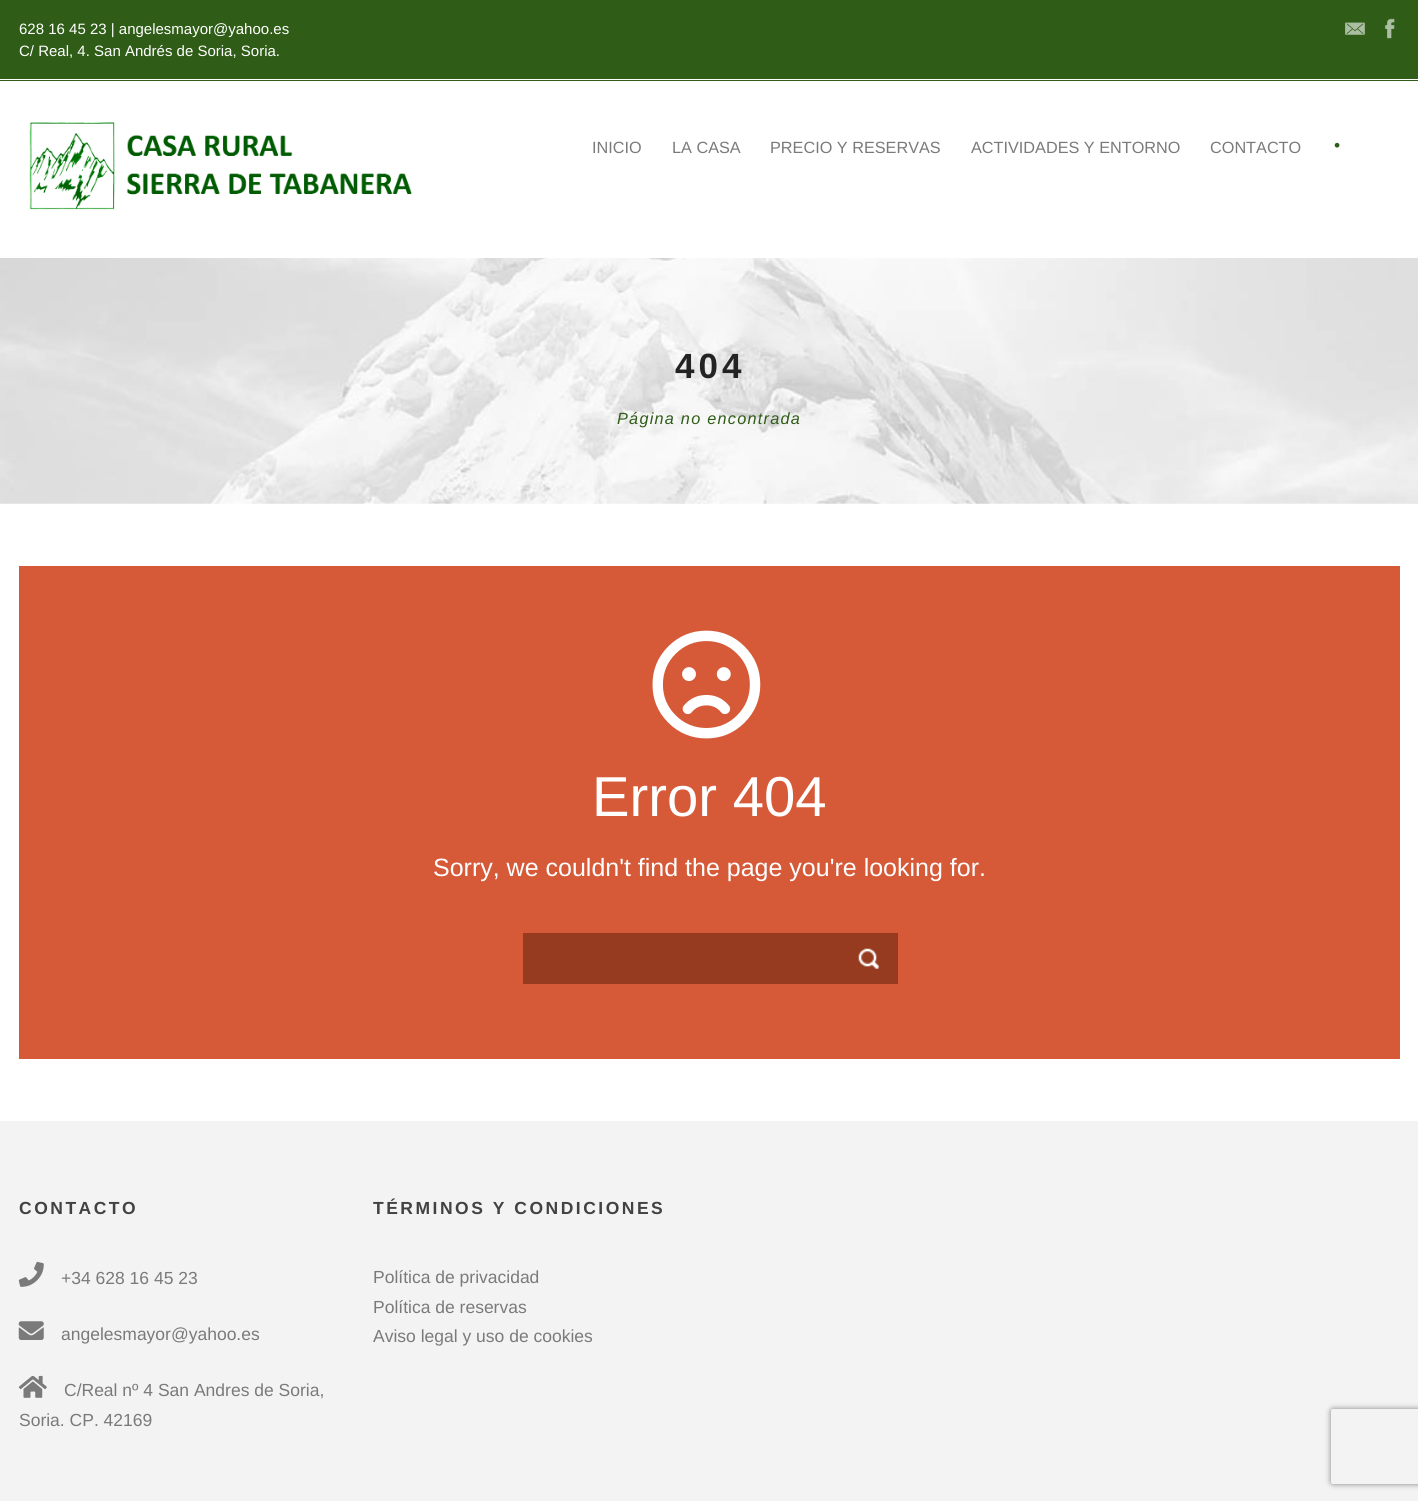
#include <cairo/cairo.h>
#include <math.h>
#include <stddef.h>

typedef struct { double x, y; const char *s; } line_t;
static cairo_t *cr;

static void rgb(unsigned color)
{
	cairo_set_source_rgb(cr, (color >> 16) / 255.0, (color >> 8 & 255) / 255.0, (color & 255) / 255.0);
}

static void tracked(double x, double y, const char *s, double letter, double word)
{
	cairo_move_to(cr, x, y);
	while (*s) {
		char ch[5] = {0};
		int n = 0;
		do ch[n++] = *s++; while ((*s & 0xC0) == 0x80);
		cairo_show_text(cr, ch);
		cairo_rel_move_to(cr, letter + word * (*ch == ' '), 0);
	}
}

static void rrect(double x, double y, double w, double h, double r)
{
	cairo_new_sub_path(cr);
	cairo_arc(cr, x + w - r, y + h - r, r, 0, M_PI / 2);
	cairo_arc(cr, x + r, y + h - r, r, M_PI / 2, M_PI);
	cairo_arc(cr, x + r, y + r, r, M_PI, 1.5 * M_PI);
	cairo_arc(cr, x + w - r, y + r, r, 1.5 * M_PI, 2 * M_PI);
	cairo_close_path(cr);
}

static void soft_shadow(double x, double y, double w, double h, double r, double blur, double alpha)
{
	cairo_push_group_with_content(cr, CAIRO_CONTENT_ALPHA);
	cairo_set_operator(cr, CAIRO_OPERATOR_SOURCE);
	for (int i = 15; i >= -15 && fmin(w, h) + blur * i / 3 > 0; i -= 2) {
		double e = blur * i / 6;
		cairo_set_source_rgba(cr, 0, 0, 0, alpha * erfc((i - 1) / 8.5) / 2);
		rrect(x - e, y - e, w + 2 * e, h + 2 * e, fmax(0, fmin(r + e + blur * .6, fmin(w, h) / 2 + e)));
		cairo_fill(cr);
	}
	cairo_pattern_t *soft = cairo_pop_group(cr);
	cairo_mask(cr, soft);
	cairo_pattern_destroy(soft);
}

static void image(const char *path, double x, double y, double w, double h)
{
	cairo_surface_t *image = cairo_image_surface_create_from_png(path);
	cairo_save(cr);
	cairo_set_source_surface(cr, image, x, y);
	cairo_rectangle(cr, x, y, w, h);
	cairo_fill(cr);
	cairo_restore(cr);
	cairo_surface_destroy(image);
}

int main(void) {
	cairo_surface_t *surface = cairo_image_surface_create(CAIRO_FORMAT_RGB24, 1418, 1501);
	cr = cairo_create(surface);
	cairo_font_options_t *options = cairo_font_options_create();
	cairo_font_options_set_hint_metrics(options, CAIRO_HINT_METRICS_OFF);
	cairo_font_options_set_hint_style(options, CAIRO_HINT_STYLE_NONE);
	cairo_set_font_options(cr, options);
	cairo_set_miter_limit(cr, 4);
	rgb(0xffffff);
	cairo_paint(cr);
	rgb(0x2f5c17);
	cairo_rectangle(cr, 0, 0, 1418, 79);
	cairo_fill(cr);
	image("img/1.png", 1345, 22, 20, 13);
	image("img/2.png", 1385, 18, 10, 21);
	cairo_rectangle(cr, 0, 80, 1418, 1);
	cairo_fill(cr);
	image("img/3.png", 29, 122, 383, 88);
	image("img/4.png", 0, 258, 1418, 246);
	rgb(0xd65938);
	cairo_rectangle(cr, 19, 566, 1381, 493);
	cairo_fill(cr);
	image("img/5.png", 652, 630, 109, 109);
	rgb(0x963a20);
	cairo_rectangle(cr, 523, 933, 375, 51);
	cairo_fill(cr);
	image("img/6.png", 858, 948, 21, 21);
	rgb(0xf3f3f3);
	cairo_rectangle(cr, 0, 1121, 1418, 380);
	cairo_fill(cr);
	image("img/7.png", 18, 1261, 26, 26);
	image("img/8.png", 18, 1321, 26, 19);
	image("img/9.png", 18, 1375, 29, 23);
	cairo_save(cr);
	cairo_set_fill_rule(cr, CAIRO_FILL_RULE_EVEN_ODD);
	cairo_new_path(cr);
	cairo_move_to(cr, 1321, 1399);
	cairo_line_to(cr, 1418, 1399);
	cairo_line_to(cr, 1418, 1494);
	cairo_line_to(cr, 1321, 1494);
	cairo_close_path(cr);
	cairo_move_to(cr, 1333.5, 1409);
	cairo_line_to(cr, 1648.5, 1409);
	cairo_curve_to(cr, 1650, 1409, 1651, 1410, 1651, 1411.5);
	cairo_line_to(cr, 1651, 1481.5);
	cairo_curve_to(cr, 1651, 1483, 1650, 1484, 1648.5, 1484);
	cairo_line_to(cr, 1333.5, 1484);
	cairo_curve_to(cr, 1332, 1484, 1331, 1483, 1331, 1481.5);
	cairo_line_to(cr, 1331, 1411.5);
	cairo_curve_to(cr, 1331, 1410, 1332, 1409, 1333.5, 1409);
	cairo_close_path(cr);
	cairo_clip(cr);
	rgb(0x808080);
	soft_shadow(1331, 1409, 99, 75, 2.5, 3, 1);
	cairo_restore(cr);
	cairo_select_font_face(cr, "Liberation Sans", CAIRO_FONT_SLANT_NORMAL, CAIRO_FONT_WEIGHT_NORMAL);
	cairo_set_font_size(cr, 15);
	rgb(0xffffff);
	cairo_move_to(cr, 19, 34);
	cairo_show_text(cr, "628 16 45 23 | angelesmayor@yahoo.es");
	cairo_move_to(cr, 19, 56);
	cairo_show_text(cr, "C/ Real, 4. San Andrés de Soria, Soria.");
	cairo_set_font_size(cr, 16.25);
	rgb(0x7a7a7a);
	{
		static const line_t items[] = {
			{592, 153, "INICIO"},
			{672, 153, "LA CASA"},
			{770, 153, "PRECIO Y RESERVAS"},
			{971, 153, "ACTIVIDADES Y ENTORNO"},
			{1210, 153, "CONTACTO"},
		};
		for (size_t i = 0; i < sizeof items / sizeof *items; i++) {
			cairo_move_to(cr, items[i].x, items[i].y);
			cairo_show_text(cr, items[i].s);
		}
	}
	cairo_set_font_size(cr, 17.5);
	rgb(0x2f5c17);
	cairo_move_to(cr, 1334, 151);
	cairo_show_text(cr, "•");
	cairo_select_font_face(cr, "Liberation Sans", CAIRO_FONT_SLANT_NORMAL, CAIRO_FONT_WEIGHT_BOLD);
	cairo_set_font_size(cr, 35);
	rgb(0x232323);
	tracked(675, 378, "404", 4, 0);
	cairo_select_font_face(cr, "Liberation Sans", CAIRO_FONT_SLANT_ITALIC, CAIRO_FONT_WEIGHT_NORMAL);
	cairo_set_font_size(cr, 16.25);
	rgb(0x2f5c17);
	tracked(617, 424, "Página no encontrada", 1.25, 0);
	cairo_select_font_face(cr, "Liberation Sans", CAIRO_FONT_SLANT_NORMAL, CAIRO_FONT_WEIGHT_NORMAL);
	cairo_set_font_size(cr, 56.25);
	rgb(0xffffff);
	cairo_move_to(cr, 592, 816);
	cairo_show_text(cr, "Error 404");
	cairo_set_font_size(cr, 25);
	cairo_move_to(cr, 433, 876);
	cairo_show_text(cr, "Sorry, we couldn't find the page you're looking for.");
	cairo_select_font_face(cr, "Liberation Sans", CAIRO_FONT_SLANT_NORMAL, CAIRO_FONT_WEIGHT_BOLD);
	cairo_set_font_size(cr, 17.5);
	rgb(0x424242);
	tracked(19, 1214, "CONTACTO", 2.5, 0);
	cairo_select_font_face(cr, "Liberation Sans", CAIRO_FONT_SLANT_NORMAL, CAIRO_FONT_WEIGHT_NORMAL);
	rgb(0x7a7a7a);
	{
		static const line_t items[] = {
			{61, 1284, "+34 628 16 45 23"},
			{61, 1340, "angelesmayor@yahoo.es"},
			{64, 1396, "C/Real nº 4 San Andres de Soria,"},
			{19, 1426, "Soria. CP. 42169"},
		};
		for (size_t i = 0; i < sizeof items / sizeof *items; i++) {
			cairo_move_to(cr, items[i].x, items[i].y);
			cairo_show_text(cr, items[i].s);
		}
	}
	cairo_select_font_face(cr, "Liberation Sans", CAIRO_FONT_SLANT_NORMAL, CAIRO_FONT_WEIGHT_BOLD);
	rgb(0x424242);
	tracked(373, 1214, "TÉRMINOS Y CONDICIONES", 2.5, 0);
	cairo_select_font_face(cr, "Liberation Sans", CAIRO_FONT_SLANT_NORMAL, CAIRO_FONT_WEIGHT_NORMAL);
	rgb(0x7a7a7a);
	{
		static const line_t items[] = {
			{373, 1283, "Política de privacidad"},
			{373, 1313, "Política de reservas"},
			{373, 1342, "Aviso legal y uso de cookies"},
		};
		for (size_t i = 0; i < sizeof items / sizeof *items; i++) {
			cairo_move_to(cr, items[i].x, items[i].y);
			cairo_show_text(cr, items[i].s);
		}
	}
	cairo_surface_write_to_png(surface, "page.png");
	cairo_font_options_destroy(options);
	cairo_destroy(cr);
	cairo_surface_destroy(surface);
	return 0;
}
